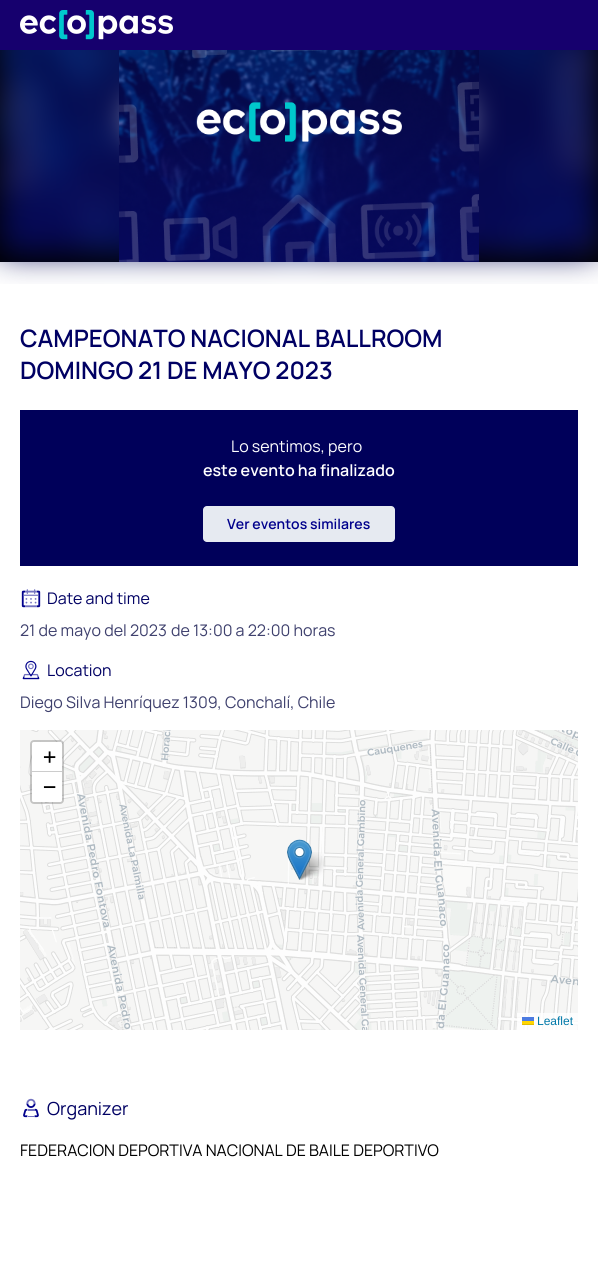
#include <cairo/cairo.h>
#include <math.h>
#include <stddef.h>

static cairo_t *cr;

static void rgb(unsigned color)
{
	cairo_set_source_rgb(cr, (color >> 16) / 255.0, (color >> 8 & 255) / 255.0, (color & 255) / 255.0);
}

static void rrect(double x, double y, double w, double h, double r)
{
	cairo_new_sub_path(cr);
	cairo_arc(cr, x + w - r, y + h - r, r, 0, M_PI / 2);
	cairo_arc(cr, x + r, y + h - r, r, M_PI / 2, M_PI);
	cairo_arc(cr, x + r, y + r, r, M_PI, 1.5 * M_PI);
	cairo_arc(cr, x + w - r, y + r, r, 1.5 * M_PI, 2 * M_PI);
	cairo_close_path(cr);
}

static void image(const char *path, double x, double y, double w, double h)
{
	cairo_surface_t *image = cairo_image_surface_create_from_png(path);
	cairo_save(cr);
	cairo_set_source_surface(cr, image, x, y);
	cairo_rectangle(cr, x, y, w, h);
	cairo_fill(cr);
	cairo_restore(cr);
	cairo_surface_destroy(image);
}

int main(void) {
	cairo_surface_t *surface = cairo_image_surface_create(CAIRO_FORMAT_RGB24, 598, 1267);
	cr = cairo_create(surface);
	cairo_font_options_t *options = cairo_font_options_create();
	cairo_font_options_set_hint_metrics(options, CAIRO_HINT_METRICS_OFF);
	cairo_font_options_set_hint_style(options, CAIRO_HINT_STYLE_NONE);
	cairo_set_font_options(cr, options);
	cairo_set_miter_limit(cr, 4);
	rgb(0xffffff);
	cairo_paint(cr);
	rgb(0x16006e);
	cairo_rectangle(cr, 0, 0, 598, 50);
	cairo_fill(cr);
	image("img/1.png", 20, 10, 153, 30);
	rgb(0x000000);
	cairo_rectangle(cr, 0, 50, 598, 212);
	cairo_fill(cr);
	image("img/2.png", 0, 50, 598, 234);
	image("img/3.png", 119, 50, 360, 212);
	rgb(0x00005a);
	cairo_rectangle(cr, 20, 410, 558, 156);
	cairo_fill(cr);
	rgb(0xe6eaf1);
	rrect(203, 506, 192, 36, 4);
	cairo_fill(cr);
	image("img/4.png", 21, 589, 20, 19);
	image("img/5.png", 22, 660, 18, 20);
	image("img/6.png", 20, 730, 9, 203);
	image("img/7.png", 29, 730, 256, 203);
	image("img/8.png", 285, 730, 256, 203);
	image("img/9.png", 541, 730, 37, 203);
	image("img/10.png", 20, 933, 9, 97);
	image("img/11.png", 29, 933, 256, 97);
	image("img/12.png", 285, 933, 256, 97);
	image("img/13.png", 541, 933, 37, 97);
	image("img/15.png", 297, 852, 29, 28);
	image("img/14.png", 287, 839, 25, 41);
	rrect(31, 741, 32, 62, 3);
	cairo_set_source_rgba(cr, 0, 0, 0, 0.2);
	cairo_stroke(cr);
	rgb(0xffffff);
	cairo_new_path(cr);
	cairo_move_to(cr, 34, 742);
	cairo_line_to(cr, 60, 742);
	cairo_curve_to(cr, 61, 742, 62, 743, 62, 744);
	cairo_line_to(cr, 62, 771);
	cairo_line_to(cr, 32, 771);
	cairo_line_to(cr, 32, 744);
	cairo_curve_to(cr, 32, 743, 33, 742, 34, 742);
	cairo_close_path(cr);
	cairo_fill(cr);
	rgb(0xcccccc);
	cairo_rectangle(cr, 32, 771, 30, 1);
	cairo_fill(cr);
	rgb(0xffffff);
	cairo_new_path(cr);
	cairo_move_to(cr, 32, 772);
	cairo_line_to(cr, 62, 772);
	cairo_line_to(cr, 62, 800);
	cairo_curve_to(cr, 62, 801, 61, 802, 60, 802);
	cairo_line_to(cr, 34, 802);
	cairo_curve_to(cr, 33, 802, 32, 801, 32, 800);
	cairo_close_path(cr);
	cairo_fill(cr);
	cairo_set_source_rgba(cr, 1, 1, 1, 0.8);
	cairo_rectangle(cr, 517, 1013, 61, 17);
	cairo_fill(cr);
	rgb(0x4c7be1);
	cairo_rectangle(cr, 522, 1017, 12, 4);
	cairo_fill(cr);
	rgb(0xffd500);
	cairo_rectangle(cr, 522, 1021, 12, 3);
	cairo_fill(cr);
	rgb(0xe0bc00);
	cairo_rectangle(cr, 522, 1024, 12, 1);
	cairo_fill(cr);
	image("img/16.png", 23, 1098, 16, 20);
	cairo_select_font_face(cr, "Manrope SemiBold", CAIRO_FONT_SLANT_NORMAL, CAIRO_FONT_WEIGHT_NORMAL);
	cairo_set_font_size(cr, 24);
	rgb(0x000063);
	cairo_move_to(cr, 20, 347);
	cairo_show_text(cr, "CAMPEONATO NACIONAL BALLROOM");
	cairo_move_to(cr, 20, 379);
	cairo_show_text(cr, "DOMINGO 21 DE MAYO 2023");
	cairo_select_font_face(cr, "Manrope", CAIRO_FONT_SLANT_NORMAL, CAIRO_FONT_WEIGHT_NORMAL);
	cairo_set_font_size(cr, 16);
	rgb(0xffffff);
	cairo_move_to(cr, 231, 452);
	cairo_show_text(cr, "Lo sentimos, pero");
	cairo_select_font_face(cr, "Manrope SemiBold", CAIRO_FONT_SLANT_NORMAL, CAIRO_FONT_WEIGHT_NORMAL);
	cairo_move_to(cr, 203, 476);
	cairo_show_text(cr, "este evento ha finalizado");
	cairo_set_font_size(cr, 14);
	rgb(0x00008c);
	cairo_move_to(cr, 227, 529);
	cairo_show_text(cr, "Ver eventos similares");
	cairo_select_font_face(cr, "Manrope", CAIRO_FONT_SLANT_NORMAL, CAIRO_FONT_WEIGHT_NORMAL);
	cairo_set_font_size(cr, 16);
	rgb(0x000063);
	cairo_move_to(cr, 47, 604);
	cairo_show_text(cr, "Date and time");
	rgb(0x3e406d);
	cairo_move_to(cr, 20, 636);
	cairo_show_text(cr, "21 de mayo del 2023");
	cairo_move_to(cr, 171, 636);
	cairo_show_text(cr, "de 13:00 a 22:00 horas");
	rgb(0x000063);
	cairo_move_to(cr, 47, 676);
	cairo_show_text(cr, "Location");
	rgb(0x3e406d);
	cairo_move_to(cr, 20, 708);
	cairo_show_text(cr, "Diego Silva Henríquez 1309, Conchalí, Chile");
	cairo_select_font_face(cr, "DejaVu Sans Mono", CAIRO_FONT_SLANT_NORMAL, CAIRO_FONT_WEIGHT_NORMAL);
	cairo_set_font_size(cr, 22);
	rgb(0x000000);
	cairo_move_to(cr, 43, 764);
	cairo_show_text(cr, "+");
	cairo_move_to(cr, 43, 794);
	cairo_show_text(cr, "−");
	cairo_select_font_face(cr, "Liberation Sans", CAIRO_FONT_SLANT_NORMAL, CAIRO_FONT_WEIGHT_NORMAL);
	cairo_set_font_size(cr, 12);
	rgb(0x0078a8);
	cairo_move_to(cr, 537, 1025);
	cairo_show_text(cr, "Leaflet");
	cairo_select_font_face(cr, "Manrope", CAIRO_FONT_SLANT_NORMAL, CAIRO_FONT_WEIGHT_NORMAL);
	cairo_set_font_size(cr, 18);
	rgb(0x000063);
	cairo_move_to(cr, 47, 1115);
	cairo_show_text(cr, "Organizer");
	cairo_set_font_size(cr, 16);
	rgb(0x000000);
	cairo_move_to(cr, 20, 1156);
	cairo_show_text(cr, "FEDERACION DEPORTIVA NACIONAL DE BAILE DEPORTIVO");
	cairo_surface_write_to_png(surface, "page.png");
	cairo_font_options_destroy(options);
	cairo_destroy(cr);
	cairo_surface_destroy(surface);
	return 0;
}
